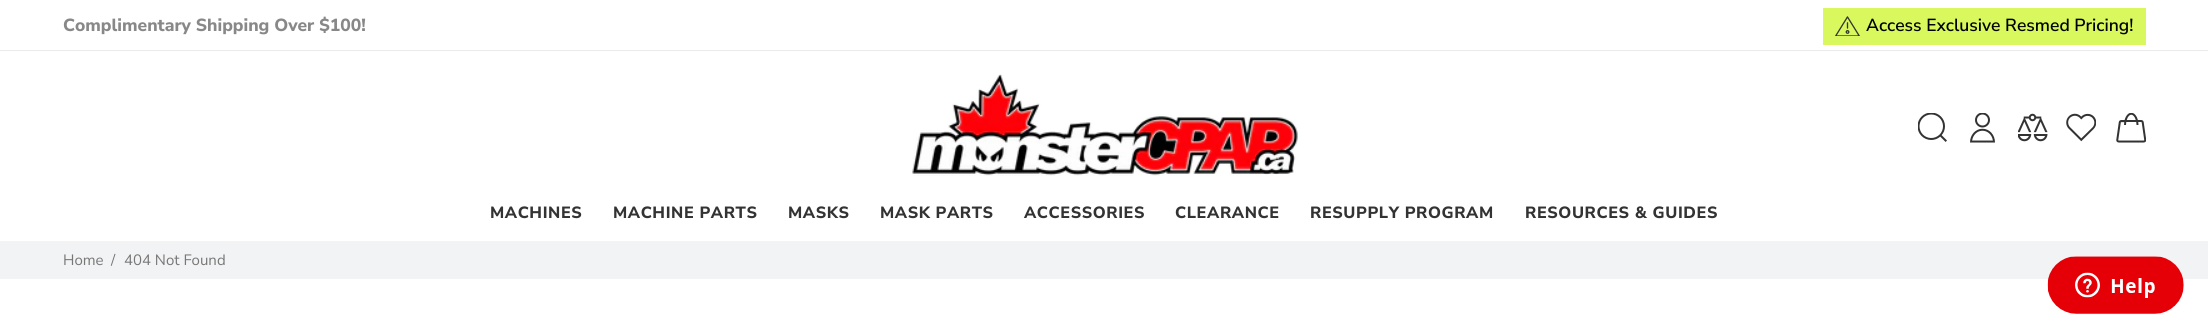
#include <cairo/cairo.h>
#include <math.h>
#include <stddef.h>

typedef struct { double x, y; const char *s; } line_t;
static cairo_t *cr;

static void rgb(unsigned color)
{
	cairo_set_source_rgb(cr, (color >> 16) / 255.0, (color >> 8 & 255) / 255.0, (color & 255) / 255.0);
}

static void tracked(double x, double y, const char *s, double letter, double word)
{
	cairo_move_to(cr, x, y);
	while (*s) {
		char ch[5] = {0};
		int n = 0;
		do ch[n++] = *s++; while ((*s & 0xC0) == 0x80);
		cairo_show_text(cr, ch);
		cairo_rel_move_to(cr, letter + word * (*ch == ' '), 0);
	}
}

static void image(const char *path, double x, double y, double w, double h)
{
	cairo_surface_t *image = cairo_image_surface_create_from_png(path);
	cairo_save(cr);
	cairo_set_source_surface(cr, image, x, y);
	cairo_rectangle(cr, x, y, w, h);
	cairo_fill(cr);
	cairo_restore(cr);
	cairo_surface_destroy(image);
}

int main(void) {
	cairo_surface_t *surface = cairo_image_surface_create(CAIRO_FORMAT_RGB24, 2208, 331);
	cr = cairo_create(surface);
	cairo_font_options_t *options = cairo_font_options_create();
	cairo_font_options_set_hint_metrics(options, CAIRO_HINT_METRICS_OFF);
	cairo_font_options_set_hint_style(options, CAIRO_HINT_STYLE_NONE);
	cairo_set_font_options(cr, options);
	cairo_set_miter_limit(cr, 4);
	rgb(0xffffff);
	cairo_paint(cr);
	rgb(0xebebeb);
	cairo_rectangle(cr, 0, 50, 2208, 1);
	cairo_fill(cr);
	rgb(0xd9f85d);
	cairo_rectangle(cr, 1823, 8, 323, 37);
	cairo_fill(cr);
	image("img/1.png", 1835, 16, 25, 20);
	image("img/2.png", 912, 74, 386, 102);
	image("img/3.png", 1918, 113, 29, 29);
	image("img/4.png", 1970, 113, 25, 30);
	image("img/5.png", 2018, 113, 30, 29);
	image("img/6.png", 2066, 113, 30, 29);
	image("img/7.png", 2116, 113, 30, 30);
	rgb(0xf2f3f4);
	cairo_rectangle(cr, 0, 241, 2208, 38);
	cairo_fill(cr);
	image("img/8.png", 2047, 256, 137, 58);
	cairo_select_font_face(cr, "Nunito Sans ExtraBold", CAIRO_FONT_SLANT_NORMAL, CAIRO_FONT_WEIGHT_NORMAL);
	cairo_set_font_size(cr, 17.5);
	rgb(0x888888);
	cairo_move_to(cr, 63, 31);
	cairo_show_text(cr, "Complimentary Shipping Over $100!");
	cairo_select_font_face(cr, "Nunito Sans SemiBold", CAIRO_FONT_SLANT_NORMAL, CAIRO_FONT_WEIGHT_NORMAL);
	rgb(0x000000);
	cairo_move_to(cr, 1866, 31);
	cairo_show_text(cr, "Access Exclusive Resmed Pricing!");
	cairo_select_font_face(cr, "Nunito Sans ExtraBold", CAIRO_FONT_SLANT_NORMAL, CAIRO_FONT_WEIGHT_NORMAL);
	cairo_set_font_size(cr, 16.25);
	rgb(0x333333);
	{
		static const line_t items[] = {
			{490, 218, "MACHINES"},
			{613, 218, "MACHINE PARTS"},
			{788, 218, "MASKS"},
			{880, 218, "MASK PARTS"},
			{1024, 218, "ACCESSORIES"},
			{1175, 218, "CLEARANCE"},
			{1310, 218, "RESUPPLY PROGRAM"},
			{1525, 218, "RESOURCES & GUIDES"},
		};
		for (size_t i = 0; i < sizeof items / sizeof *items; i++) {
			tracked(items[i].x, items[i].y, items[i].s, 0.6, 0);
		}
	}
	cairo_select_font_face(cr, "Nunito Sans", CAIRO_FONT_SLANT_NORMAL, CAIRO_FONT_WEIGHT_NORMAL);
	cairo_set_font_size(cr, 15);
	rgb(0x777777);
	{
		static const line_t items[] = {
			{63, 265, "Home"},
			{111, 265, "/"},
			{124, 265, "404 Not Found"},
		};
		for (size_t i = 0; i < sizeof items / sizeof *items; i++) {
			cairo_move_to(cr, items[i].x, items[i].y);
			cairo_show_text(cr, items[i].s);
		}
	}
	cairo_surface_write_to_png(surface, "page.png");
	cairo_font_options_destroy(options);
	cairo_destroy(cr);
	cairo_surface_destroy(surface);
	return 0;
}
